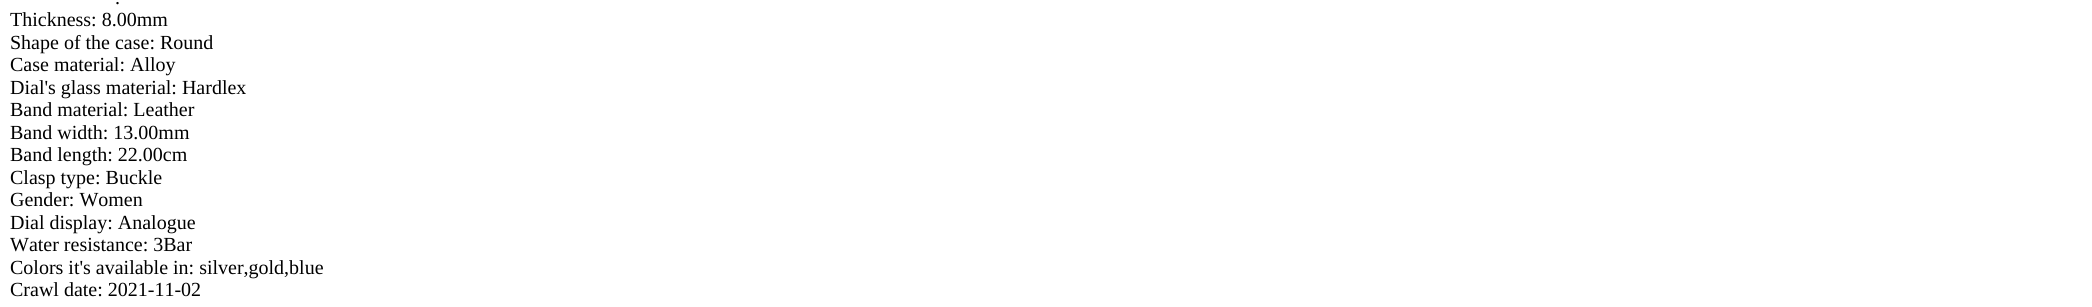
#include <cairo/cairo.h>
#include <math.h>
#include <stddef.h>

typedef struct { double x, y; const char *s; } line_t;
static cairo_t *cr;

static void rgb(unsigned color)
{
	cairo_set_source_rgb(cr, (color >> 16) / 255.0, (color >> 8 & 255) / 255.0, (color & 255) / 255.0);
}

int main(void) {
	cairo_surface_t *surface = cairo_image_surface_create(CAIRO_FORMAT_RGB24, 2092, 307);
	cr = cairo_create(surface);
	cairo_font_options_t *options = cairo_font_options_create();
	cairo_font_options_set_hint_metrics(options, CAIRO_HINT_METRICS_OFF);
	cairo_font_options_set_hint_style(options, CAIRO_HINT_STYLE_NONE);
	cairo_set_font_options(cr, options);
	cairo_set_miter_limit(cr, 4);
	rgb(0xffffff);
	cairo_paint(cr);
	cairo_select_font_face(cr, "Liberation Serif", CAIRO_FONT_SLANT_NORMAL, CAIRO_FONT_WEIGHT_NORMAL);
	cairo_set_font_size(cr, 20);
	rgb(0x000000);
	{
		static const line_t items[] = {
			{115, 4, "."},
			{10, 26, "Thickness: 8.00mm"},
			{10, 49, "Shape of the case: Round"},
			{10, 71, "Case material: Alloy"},
			{10, 94, "Dial's glass material: Hardlex"},
			{10, 116, "Band material: Leather"},
			{10, 139, "Band width: 13.00mm"},
			{10, 161, "Band length: 22.00cm"},
			{10, 184, "Clasp type: Buckle"},
			{10, 206, "Gender: Women"},
			{10, 229, "Dial display: Analogue"},
			{10, 251, "Water resistance: 3Bar"},
			{10, 274, "Colors it's available in: silver,gold,blue"},
			{10, 296, "Crawl date: 2021-11-02"},
		};
		for (size_t i = 0; i < sizeof items / sizeof *items; i++) {
			cairo_move_to(cr, items[i].x, items[i].y);
			cairo_show_text(cr, items[i].s);
		}
	}
	cairo_surface_write_to_png(surface, "page.png");
	cairo_font_options_destroy(options);
	cairo_destroy(cr);
	cairo_surface_destroy(surface);
	return 0;
}
